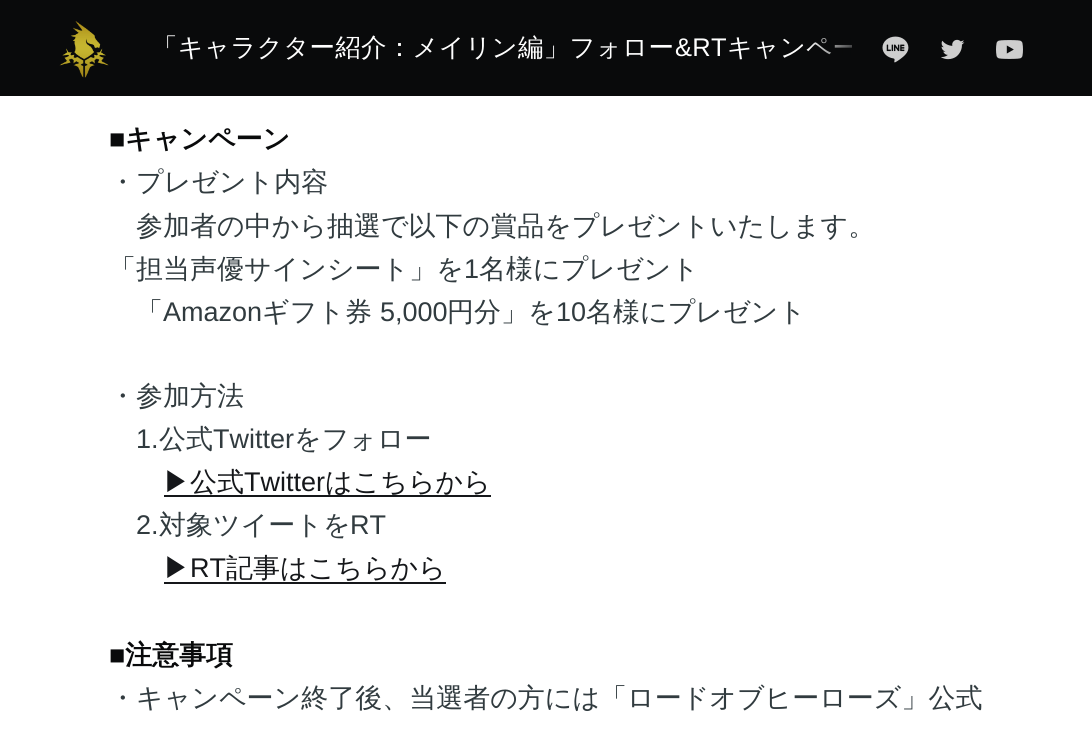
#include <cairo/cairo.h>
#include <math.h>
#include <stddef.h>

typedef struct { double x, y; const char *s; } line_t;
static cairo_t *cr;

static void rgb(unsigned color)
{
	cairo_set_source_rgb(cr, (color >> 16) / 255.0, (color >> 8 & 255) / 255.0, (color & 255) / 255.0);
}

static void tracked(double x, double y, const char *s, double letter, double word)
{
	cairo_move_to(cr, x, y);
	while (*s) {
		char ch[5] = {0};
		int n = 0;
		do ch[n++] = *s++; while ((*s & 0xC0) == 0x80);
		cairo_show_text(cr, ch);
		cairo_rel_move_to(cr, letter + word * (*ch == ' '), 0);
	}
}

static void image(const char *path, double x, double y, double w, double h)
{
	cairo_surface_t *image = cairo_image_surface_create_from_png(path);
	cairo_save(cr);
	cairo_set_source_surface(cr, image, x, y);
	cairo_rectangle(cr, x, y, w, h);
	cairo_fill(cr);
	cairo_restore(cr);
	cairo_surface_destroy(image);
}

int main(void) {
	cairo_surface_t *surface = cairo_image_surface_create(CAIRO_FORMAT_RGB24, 1092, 739);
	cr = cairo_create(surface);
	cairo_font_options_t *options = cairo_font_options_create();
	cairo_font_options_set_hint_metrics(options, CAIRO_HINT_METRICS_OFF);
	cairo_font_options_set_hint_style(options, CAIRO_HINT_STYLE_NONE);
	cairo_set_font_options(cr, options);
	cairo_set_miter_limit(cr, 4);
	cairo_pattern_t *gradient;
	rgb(0xffffff);
	cairo_paint(cr);
	rgb(0x090a0b);
	cairo_rectangle(cr, 0, 0, 1092, 96);
	cairo_fill(cr);
	image("img/1.png", 59, 21, 50, 57);
	image("img/2.png", 882, 36, 27, 27);
	image("img/3.png", 941, 39, 24, 21);
	image("img/4.png", 996, 40, 27, 19);
	rgb(0x15171a);
	cairo_rectangle(cr, 164, 495, 327, 2);
	cairo_fill(cr);
	cairo_rectangle(cr, 164, 582, 282, 2);
	cairo_fill(cr);
	cairo_select_font_face(cr, "WenQuanYi Zen Hei Medium", CAIRO_FONT_SLANT_NORMAL, CAIRO_FONT_WEIGHT_NORMAL);
	cairo_set_font_size(cr, 25.5);
	rgb(0xffffff);
	tracked(152, 56, "「キャラクター紹介：メイリン編」フォロー", 0.25, 0);
	cairo_select_font_face(cr, "Liberation Sans", CAIRO_FONT_SLANT_NORMAL, CAIRO_FONT_WEIGHT_NORMAL);
	tracked(675, 56, "&RT", 0.25, 0);
	cairo_save(cr);
	cairo_rectangle(cr, 54, 0, 798, 96);
	cairo_clip(cr);
	cairo_select_font_face(cr, "WenQuanYi Zen Hei Medium", CAIRO_FONT_SLANT_NORMAL, CAIRO_FONT_WEIGHT_NORMAL);
	tracked(727, 56, "キャンペー", 0.25, 0);
	cairo_restore(cr);
	gradient = cairo_pattern_create_linear(807, 102, 867, 102);
	cairo_pattern_add_color_stop_rgba(gradient, 0, 0.035, 0.039, 0.043, 0);
	cairo_pattern_add_color_stop_rgba(gradient, 1, 0.035, 0.039, 0.043, 1);
	cairo_set_source(cr, gradient);
	cairo_pattern_destroy(gradient);
	cairo_rectangle(cr, 808, 38, 44, 17);
	cairo_fill(cr);
	cairo_select_font_face(cr, "Liberation Sans", CAIRO_FONT_SLANT_NORMAL, CAIRO_FONT_WEIGHT_BOLD);
	cairo_set_font_size(cr, 27);
	rgb(0x090a0b);
	cairo_move_to(cr, 109, 148);
	cairo_show_text(cr, "■");
	cairo_select_font_face(cr, "WenQuanYi Zen Hei", CAIRO_FONT_SLANT_NORMAL, CAIRO_FONT_WEIGHT_BOLD);
	cairo_move_to(cr, 125, 148);
	cairo_show_text(cr, "キャンペーン");
	cairo_select_font_face(cr, "WenQuanYi Zen Hei Medium", CAIRO_FONT_SLANT_NORMAL, CAIRO_FONT_WEIGHT_NORMAL);
	rgb(0x313b3f);
	{
		static const line_t items[] = {
			{109, 191, "・プレゼント内容"},
			{136, 235, "参加者の中から抽選で以下の賞品をプレゼントいたします。"},
			{109, 278, "「担当声優サインシート」を"},
		};
		for (size_t i = 0; i < sizeof items / sizeof *items; i++) {
			cairo_move_to(cr, items[i].x, items[i].y);
			cairo_show_text(cr, items[i].s);
		}
	}
	cairo_select_font_face(cr, "Liberation Sans", CAIRO_FONT_SLANT_NORMAL, CAIRO_FONT_WEIGHT_NORMAL);
	cairo_move_to(cr, 464, 278);
	cairo_show_text(cr, "1");
	cairo_select_font_face(cr, "WenQuanYi Zen Hei Medium", CAIRO_FONT_SLANT_NORMAL, CAIRO_FONT_WEIGHT_NORMAL);
	cairo_move_to(cr, 479, 278);
	cairo_show_text(cr, "名様にプレゼント");
	cairo_move_to(cr, 136, 321);
	cairo_show_text(cr, "「");
	cairo_select_font_face(cr, "Liberation Sans", CAIRO_FONT_SLANT_NORMAL, CAIRO_FONT_WEIGHT_NORMAL);
	cairo_move_to(cr, 163, 321);
	cairo_show_text(cr, "Amazon");
	cairo_select_font_face(cr, "WenQuanYi Zen Hei Medium", CAIRO_FONT_SLANT_NORMAL, CAIRO_FONT_WEIGHT_NORMAL);
	cairo_move_to(cr, 262, 321);
	cairo_show_text(cr, "ギフト券");
	cairo_select_font_face(cr, "Liberation Sans", CAIRO_FONT_SLANT_NORMAL, CAIRO_FONT_WEIGHT_NORMAL);
	cairo_move_to(cr, 380, 321);
	cairo_show_text(cr, "5,000");
	cairo_select_font_face(cr, "WenQuanYi Zen Hei Medium", CAIRO_FONT_SLANT_NORMAL, CAIRO_FONT_WEIGHT_NORMAL);
	cairo_move_to(cr, 447, 321);
	cairo_show_text(cr, "円分」を");
	cairo_select_font_face(cr, "Liberation Sans", CAIRO_FONT_SLANT_NORMAL, CAIRO_FONT_WEIGHT_NORMAL);
	cairo_move_to(cr, 556, 321);
	cairo_show_text(cr, "10");
	cairo_select_font_face(cr, "WenQuanYi Zen Hei Medium", CAIRO_FONT_SLANT_NORMAL, CAIRO_FONT_WEIGHT_NORMAL);
	cairo_move_to(cr, 586, 321);
	cairo_show_text(cr, "名様にプレゼント");
	cairo_move_to(cr, 109, 405);
	cairo_show_text(cr, "・参加方法");
	cairo_select_font_face(cr, "Liberation Sans", CAIRO_FONT_SLANT_NORMAL, CAIRO_FONT_WEIGHT_NORMAL);
	cairo_move_to(cr, 136, 448);
	cairo_show_text(cr, "1.");
	cairo_select_font_face(cr, "WenQuanYi Zen Hei Medium", CAIRO_FONT_SLANT_NORMAL, CAIRO_FONT_WEIGHT_NORMAL);
	cairo_move_to(cr, 159, 448);
	cairo_show_text(cr, "公式");
	cairo_select_font_face(cr, "Liberation Sans", CAIRO_FONT_SLANT_NORMAL, CAIRO_FONT_WEIGHT_NORMAL);
	cairo_move_to(cr, 213, 448);
	cairo_show_text(cr, "Twitter");
	cairo_select_font_face(cr, "WenQuanYi Zen Hei Medium", CAIRO_FONT_SLANT_NORMAL, CAIRO_FONT_WEIGHT_NORMAL);
	cairo_move_to(cr, 294, 448);
	cairo_show_text(cr, "をフォロー");
	rgb(0x15171a);
	cairo_move_to(cr, 163, 491);
	cairo_show_text(cr, "▶公式");
	cairo_select_font_face(cr, "Liberation Sans", CAIRO_FONT_SLANT_NORMAL, CAIRO_FONT_WEIGHT_NORMAL);
	cairo_move_to(cr, 244, 491);
	cairo_show_text(cr, "Twitter");
	cairo_select_font_face(cr, "WenQuanYi Zen Hei Medium", CAIRO_FONT_SLANT_NORMAL, CAIRO_FONT_WEIGHT_NORMAL);
	cairo_move_to(cr, 325, 491);
	cairo_show_text(cr, "はこちらから");
	cairo_select_font_face(cr, "Liberation Sans", CAIRO_FONT_SLANT_NORMAL, CAIRO_FONT_WEIGHT_NORMAL);
	rgb(0x313b3f);
	cairo_move_to(cr, 136, 534);
	cairo_show_text(cr, "2.");
	cairo_select_font_face(cr, "WenQuanYi Zen Hei Medium", CAIRO_FONT_SLANT_NORMAL, CAIRO_FONT_WEIGHT_NORMAL);
	cairo_move_to(cr, 159, 534);
	cairo_show_text(cr, "対象ツイートを");
	cairo_select_font_face(cr, "Liberation Sans", CAIRO_FONT_SLANT_NORMAL, CAIRO_FONT_WEIGHT_NORMAL);
	cairo_move_to(cr, 350, 534);
	cairo_show_text(cr, "RT");
	cairo_select_font_face(cr, "WenQuanYi Zen Hei Medium", CAIRO_FONT_SLANT_NORMAL, CAIRO_FONT_WEIGHT_NORMAL);
	rgb(0x15171a);
	cairo_move_to(cr, 163, 577);
	cairo_show_text(cr, "▶");
	cairo_select_font_face(cr, "Liberation Sans", CAIRO_FONT_SLANT_NORMAL, CAIRO_FONT_WEIGHT_NORMAL);
	cairo_move_to(cr, 190, 577);
	cairo_show_text(cr, "RT");
	cairo_select_font_face(cr, "WenQuanYi Zen Hei Medium", CAIRO_FONT_SLANT_NORMAL, CAIRO_FONT_WEIGHT_NORMAL);
	cairo_move_to(cr, 226, 577);
	cairo_show_text(cr, "記事はこちらから");
	cairo_select_font_face(cr, "Liberation Sans", CAIRO_FONT_SLANT_NORMAL, CAIRO_FONT_WEIGHT_BOLD);
	rgb(0x090a0b);
	cairo_move_to(cr, 109, 664);
	cairo_show_text(cr, "■");
	cairo_select_font_face(cr, "WenQuanYi Zen Hei", CAIRO_FONT_SLANT_NORMAL, CAIRO_FONT_WEIGHT_BOLD);
	cairo_move_to(cr, 125, 664);
	cairo_show_text(cr, "注意事項");
	cairo_select_font_face(cr, "WenQuanYi Zen Hei Medium", CAIRO_FONT_SLANT_NORMAL, CAIRO_FONT_WEIGHT_NORMAL);
	rgb(0x313b3f);
	cairo_move_to(cr, 109, 707);
	cairo_show_text(cr, "・キャンペーン終了後、当選者の方には「ロードオブヒーローズ」公式");
	cairo_surface_write_to_png(surface, "page.png");
	cairo_font_options_destroy(options);
	cairo_destroy(cr);
	cairo_surface_destroy(surface);
	return 0;
}
